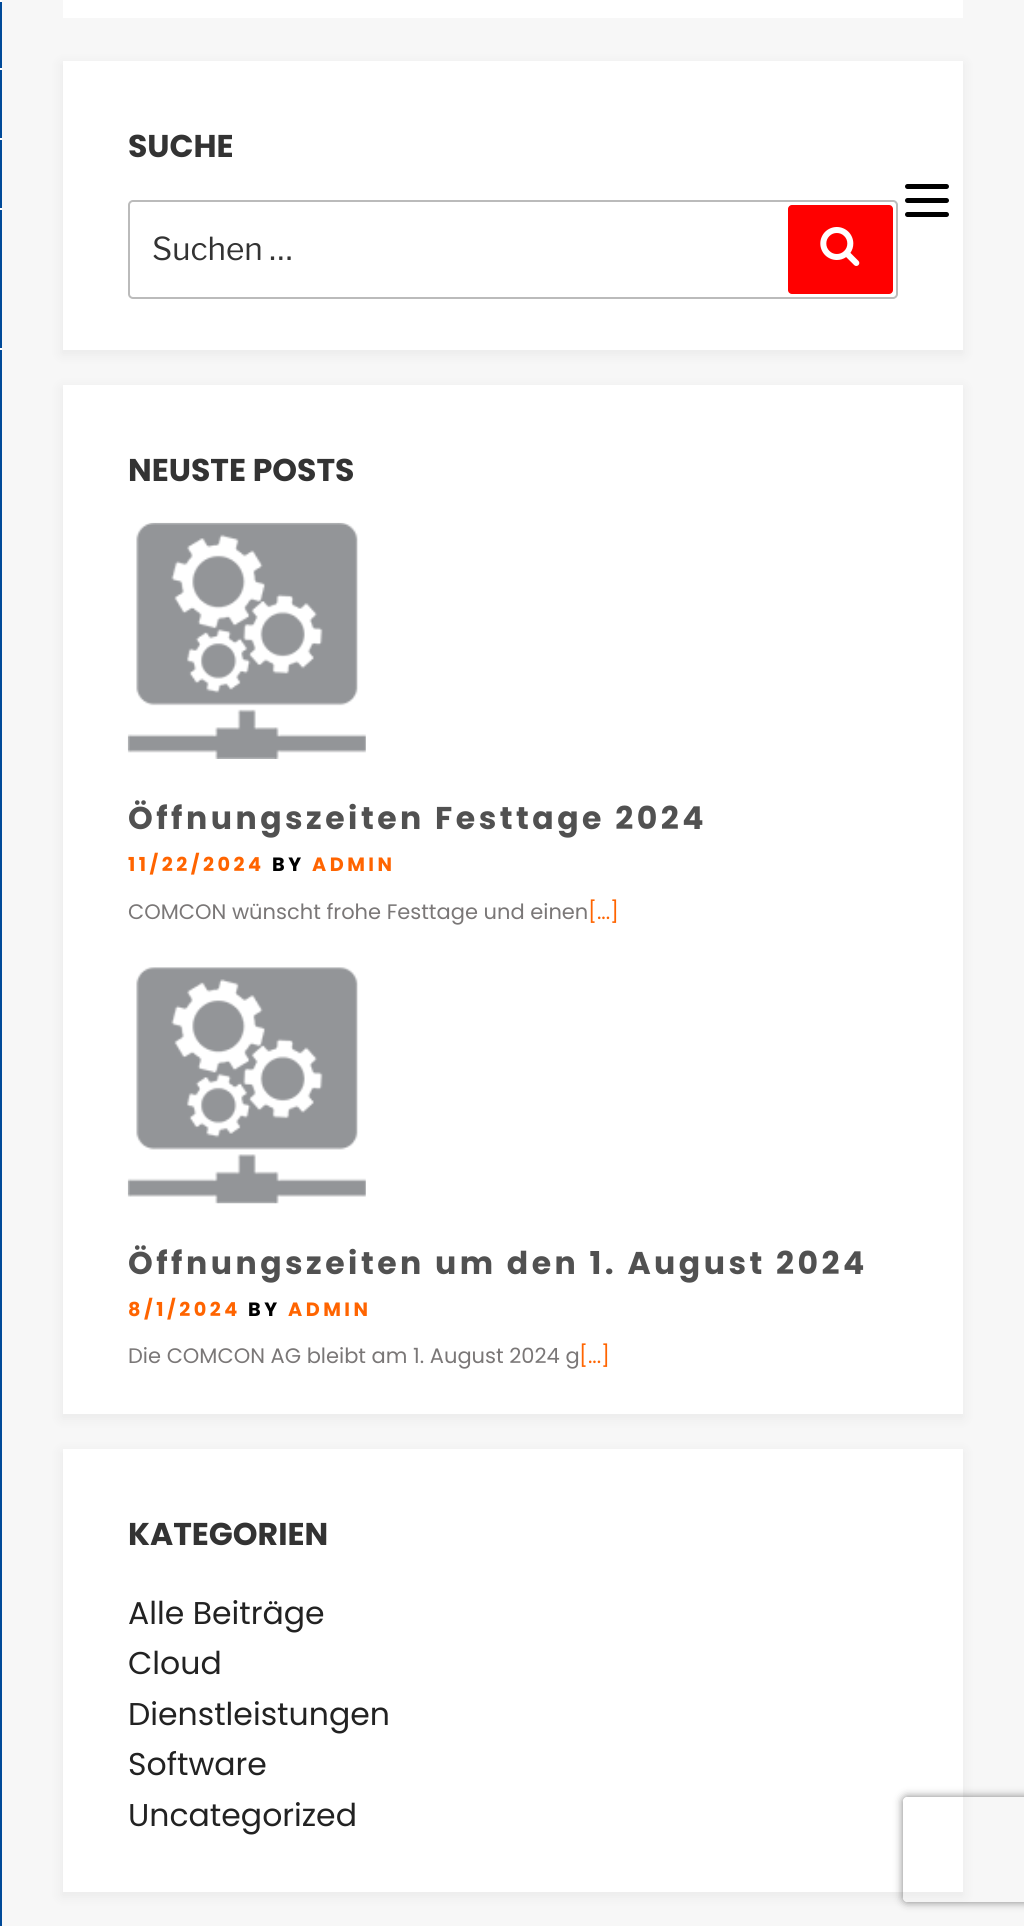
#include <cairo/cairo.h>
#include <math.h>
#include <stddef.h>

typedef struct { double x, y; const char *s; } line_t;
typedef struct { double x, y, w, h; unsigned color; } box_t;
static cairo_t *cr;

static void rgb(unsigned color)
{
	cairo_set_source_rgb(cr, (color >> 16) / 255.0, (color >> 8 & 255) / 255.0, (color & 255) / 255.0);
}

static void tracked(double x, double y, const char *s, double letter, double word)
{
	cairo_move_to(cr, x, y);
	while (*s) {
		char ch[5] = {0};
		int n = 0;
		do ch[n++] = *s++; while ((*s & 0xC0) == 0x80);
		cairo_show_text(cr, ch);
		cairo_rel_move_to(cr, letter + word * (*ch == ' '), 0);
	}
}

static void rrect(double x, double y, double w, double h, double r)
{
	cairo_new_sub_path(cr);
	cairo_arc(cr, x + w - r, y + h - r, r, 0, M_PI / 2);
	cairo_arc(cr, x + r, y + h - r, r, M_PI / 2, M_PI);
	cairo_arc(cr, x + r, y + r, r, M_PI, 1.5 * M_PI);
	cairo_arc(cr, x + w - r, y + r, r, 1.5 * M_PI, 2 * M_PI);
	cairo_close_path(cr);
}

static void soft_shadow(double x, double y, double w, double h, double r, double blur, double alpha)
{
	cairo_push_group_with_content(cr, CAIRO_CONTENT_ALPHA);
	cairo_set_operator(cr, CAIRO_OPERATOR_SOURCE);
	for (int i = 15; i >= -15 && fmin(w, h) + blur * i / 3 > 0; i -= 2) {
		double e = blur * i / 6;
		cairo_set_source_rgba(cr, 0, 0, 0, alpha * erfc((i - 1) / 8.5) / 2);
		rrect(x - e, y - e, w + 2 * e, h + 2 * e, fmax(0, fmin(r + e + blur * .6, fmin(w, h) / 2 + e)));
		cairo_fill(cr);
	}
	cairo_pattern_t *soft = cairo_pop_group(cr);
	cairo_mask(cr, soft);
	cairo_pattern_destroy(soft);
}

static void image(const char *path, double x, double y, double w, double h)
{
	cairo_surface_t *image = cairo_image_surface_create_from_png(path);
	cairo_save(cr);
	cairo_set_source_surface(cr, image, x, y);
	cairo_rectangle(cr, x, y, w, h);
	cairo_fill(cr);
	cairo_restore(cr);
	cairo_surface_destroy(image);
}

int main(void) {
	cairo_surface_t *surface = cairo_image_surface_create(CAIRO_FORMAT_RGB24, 1024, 1926);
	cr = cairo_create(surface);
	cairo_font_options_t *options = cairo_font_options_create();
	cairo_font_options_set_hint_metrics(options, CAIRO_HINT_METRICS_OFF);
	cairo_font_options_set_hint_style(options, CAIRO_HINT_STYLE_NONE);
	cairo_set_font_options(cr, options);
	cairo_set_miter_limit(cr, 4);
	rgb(0xf7f7f7);
	cairo_paint(cr);
	{
		static const box_t items[] = {
			{0, 0, 2, 1926, 0x004a99},
			{0, 0, 2, 2, 0xffffff},
			{0, 68, 2, 2, 0xffffff},
			{0, 138, 2, 2, 0xffffff},
			{0, 208, 2, 2, 0xffffff},
			{0, 348, 2, 2, 0xffffff},
			{63, 0, 900, 18, 0xffffff},
		};
		for (size_t i = 0; i < sizeof items / sizeof *items; i++) {
			rgb(items[i].color);
			cairo_rectangle(cr, items[i].x, items[i].y, items[i].w, items[i].h);
			cairo_fill(cr);
		}
	}
	rgb(0x000000);
	soft_shadow(61, 63, 903, 292, 0, 6, 0.05);
	rgb(0xffffff);
	cairo_rectangle(cr, 63, 61, 900, 289);
	cairo_fill(cr);
	rrect(129, 201, 768, 97, 4);
	rgb(0xbbbbbb);
	cairo_stroke(cr);
	rgb(0xff0000);
	rrect(788, 205, 105, 89, 4);
	cairo_fill(cr);
	image("img/1.png", 820, 227, 40, 39);
	rgb(0x000000);
	soft_shadow(61, 387, 903, 1032, 0, 6, 0.05);
	rgb(0xffffff);
	cairo_rectangle(cr, 63, 385, 900, 1029);
	cairo_fill(cr);
	image("img/2.png", 127, 522, 239, 237);
	image("img/3.png", 127, 967, 239, 237);
	rgb(0x000000);
	soft_shadow(61, 1451, 903, 446, 0, 6, 0.05);
	rgb(0xffffff);
	cairo_rectangle(cr, 63, 1449, 900, 443);
	cairo_fill(cr);
	rgb(0x000000);
	rrect(905, 198, 44, 5, 2.5);
	cairo_fill(cr);
	rrect(905, 184, 44, 5, 2.5);
	cairo_fill(cr);
	rrect(905, 212, 44, 5, 2.5);
	cairo_fill(cr);
	cairo_save(cr);
	cairo_set_fill_rule(cr, CAIRO_FILL_RULE_EVEN_ODD);
	cairo_new_path(cr);
	cairo_move_to(cr, 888, 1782);
	cairo_line_to(cr, 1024, 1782);
	cairo_line_to(cr, 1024, 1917);
	cairo_line_to(cr, 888, 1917);
	cairo_close_path(cr);
	cairo_move_to(cr, 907, 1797);
	cairo_line_to(cr, 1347, 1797);
	cairo_curve_to(cr, 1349, 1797, 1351, 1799, 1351, 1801);
	cairo_line_to(cr, 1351, 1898);
	cairo_curve_to(cr, 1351, 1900, 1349, 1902, 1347, 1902);
	cairo_line_to(cr, 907, 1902);
	cairo_curve_to(cr, 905, 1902, 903, 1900, 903, 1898);
	cairo_line_to(cr, 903, 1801);
	cairo_curve_to(cr, 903, 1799, 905, 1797, 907, 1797);
	cairo_close_path(cr);
	cairo_clip(cr);
	rgb(0x808080);
	soft_shadow(903, 1797, 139, 105, 4, 4.5, 1);
	cairo_restore(cr);
	cairo_select_font_face(cr, "Poppins", CAIRO_FONT_SLANT_NORMAL, CAIRO_FONT_WEIGHT_BOLD);
	cairo_set_font_size(cr, 31.5);
	rgb(0x333333);
	cairo_move_to(cr, 128, 157);
	cairo_show_text(cr, "SUCHE");
	cairo_select_font_face(cr, "Libre Franklin", CAIRO_FONT_SLANT_NORMAL, CAIRO_FONT_WEIGHT_NORMAL);
	cairo_move_to(cr, 152, 260);
	cairo_show_text(cr, "Suchen …");
	cairo_select_font_face(cr, "Poppins", CAIRO_FONT_SLANT_NORMAL, CAIRO_FONT_WEIGHT_BOLD);
	cairo_move_to(cr, 128, 481);
	cairo_show_text(cr, "NEUSTE POSTS");
	rgb(0x515151);
	tracked(128, 829, "Öffnungszeiten Festtage 2024", 3.5, 0);
	cairo_set_font_size(cr, 19.25);
	rgb(0xff6400);
	tracked(128, 871, "11/22/2024", 3.5, 0);
	rgb(0x000000);
	tracked(272, 871, "BY", 3.5, 0);
	rgb(0xff6400);
	tracked(312, 871, "ADMIN", 3.5, 0);
	cairo_select_font_face(cr, "Poppins", CAIRO_FONT_SLANT_NORMAL, CAIRO_FONT_WEIGHT_NORMAL);
	cairo_set_font_size(cr, 21);
	rgb(0x7a7777);
	cairo_move_to(cr, 128, 919);
	cairo_show_text(cr, "COMCON wünscht frohe Festtage und einen");
	rgb(0xff6400);
	cairo_move_to(cr, 588, 919);
	cairo_show_text(cr, "[...]");
	cairo_select_font_face(cr, "Poppins", CAIRO_FONT_SLANT_NORMAL, CAIRO_FONT_WEIGHT_BOLD);
	cairo_set_font_size(cr, 31.5);
	rgb(0x515151);
	tracked(128, 1274, "Öffnungszeiten um den 1. August 2024", 3.5, 0);
	cairo_set_font_size(cr, 19.25);
	rgb(0xff6400);
	tracked(128, 1316, "8/1/2024", 3.5, 0);
	rgb(0x000000);
	tracked(248, 1316, "BY", 3.5, 0);
	rgb(0xff6400);
	tracked(288, 1316, "ADMIN", 3.5, 0);
	cairo_select_font_face(cr, "Poppins", CAIRO_FONT_SLANT_NORMAL, CAIRO_FONT_WEIGHT_NORMAL);
	cairo_set_font_size(cr, 21);
	rgb(0x7a7777);
	cairo_move_to(cr, 128, 1363);
	cairo_show_text(cr, "Die COMCON AG bleibt am 1. August 2024 g");
	rgb(0xff6400);
	cairo_move_to(cr, 579, 1363);
	cairo_show_text(cr, "[...]");
	cairo_select_font_face(cr, "Poppins", CAIRO_FONT_SLANT_NORMAL, CAIRO_FONT_WEIGHT_BOLD);
	cairo_set_font_size(cr, 31.5);
	rgb(0x333333);
	cairo_move_to(cr, 128, 1545);
	cairo_show_text(cr, "KATEGORIEN");
	cairo_select_font_face(cr, "Poppins", CAIRO_FONT_SLANT_NORMAL, CAIRO_FONT_WEIGHT_NORMAL);
	rgb(0x222222);
	{
		static const line_t items[] = {
			{128, 1624, "Alle Beiträge"},
			{128, 1674, "Cloud"},
			{128, 1725, "Dienstleistungen"},
			{128, 1775, "Software"},
			{128, 1826, "Uncategorized"},
		};
		for (size_t i = 0; i < sizeof items / sizeof *items; i++) {
			cairo_move_to(cr, items[i].x, items[i].y);
			cairo_show_text(cr, items[i].s);
		}
	}
	cairo_surface_write_to_png(surface, "page.png");
	cairo_font_options_destroy(options);
	cairo_destroy(cr);
	cairo_surface_destroy(surface);
	return 0;
}
